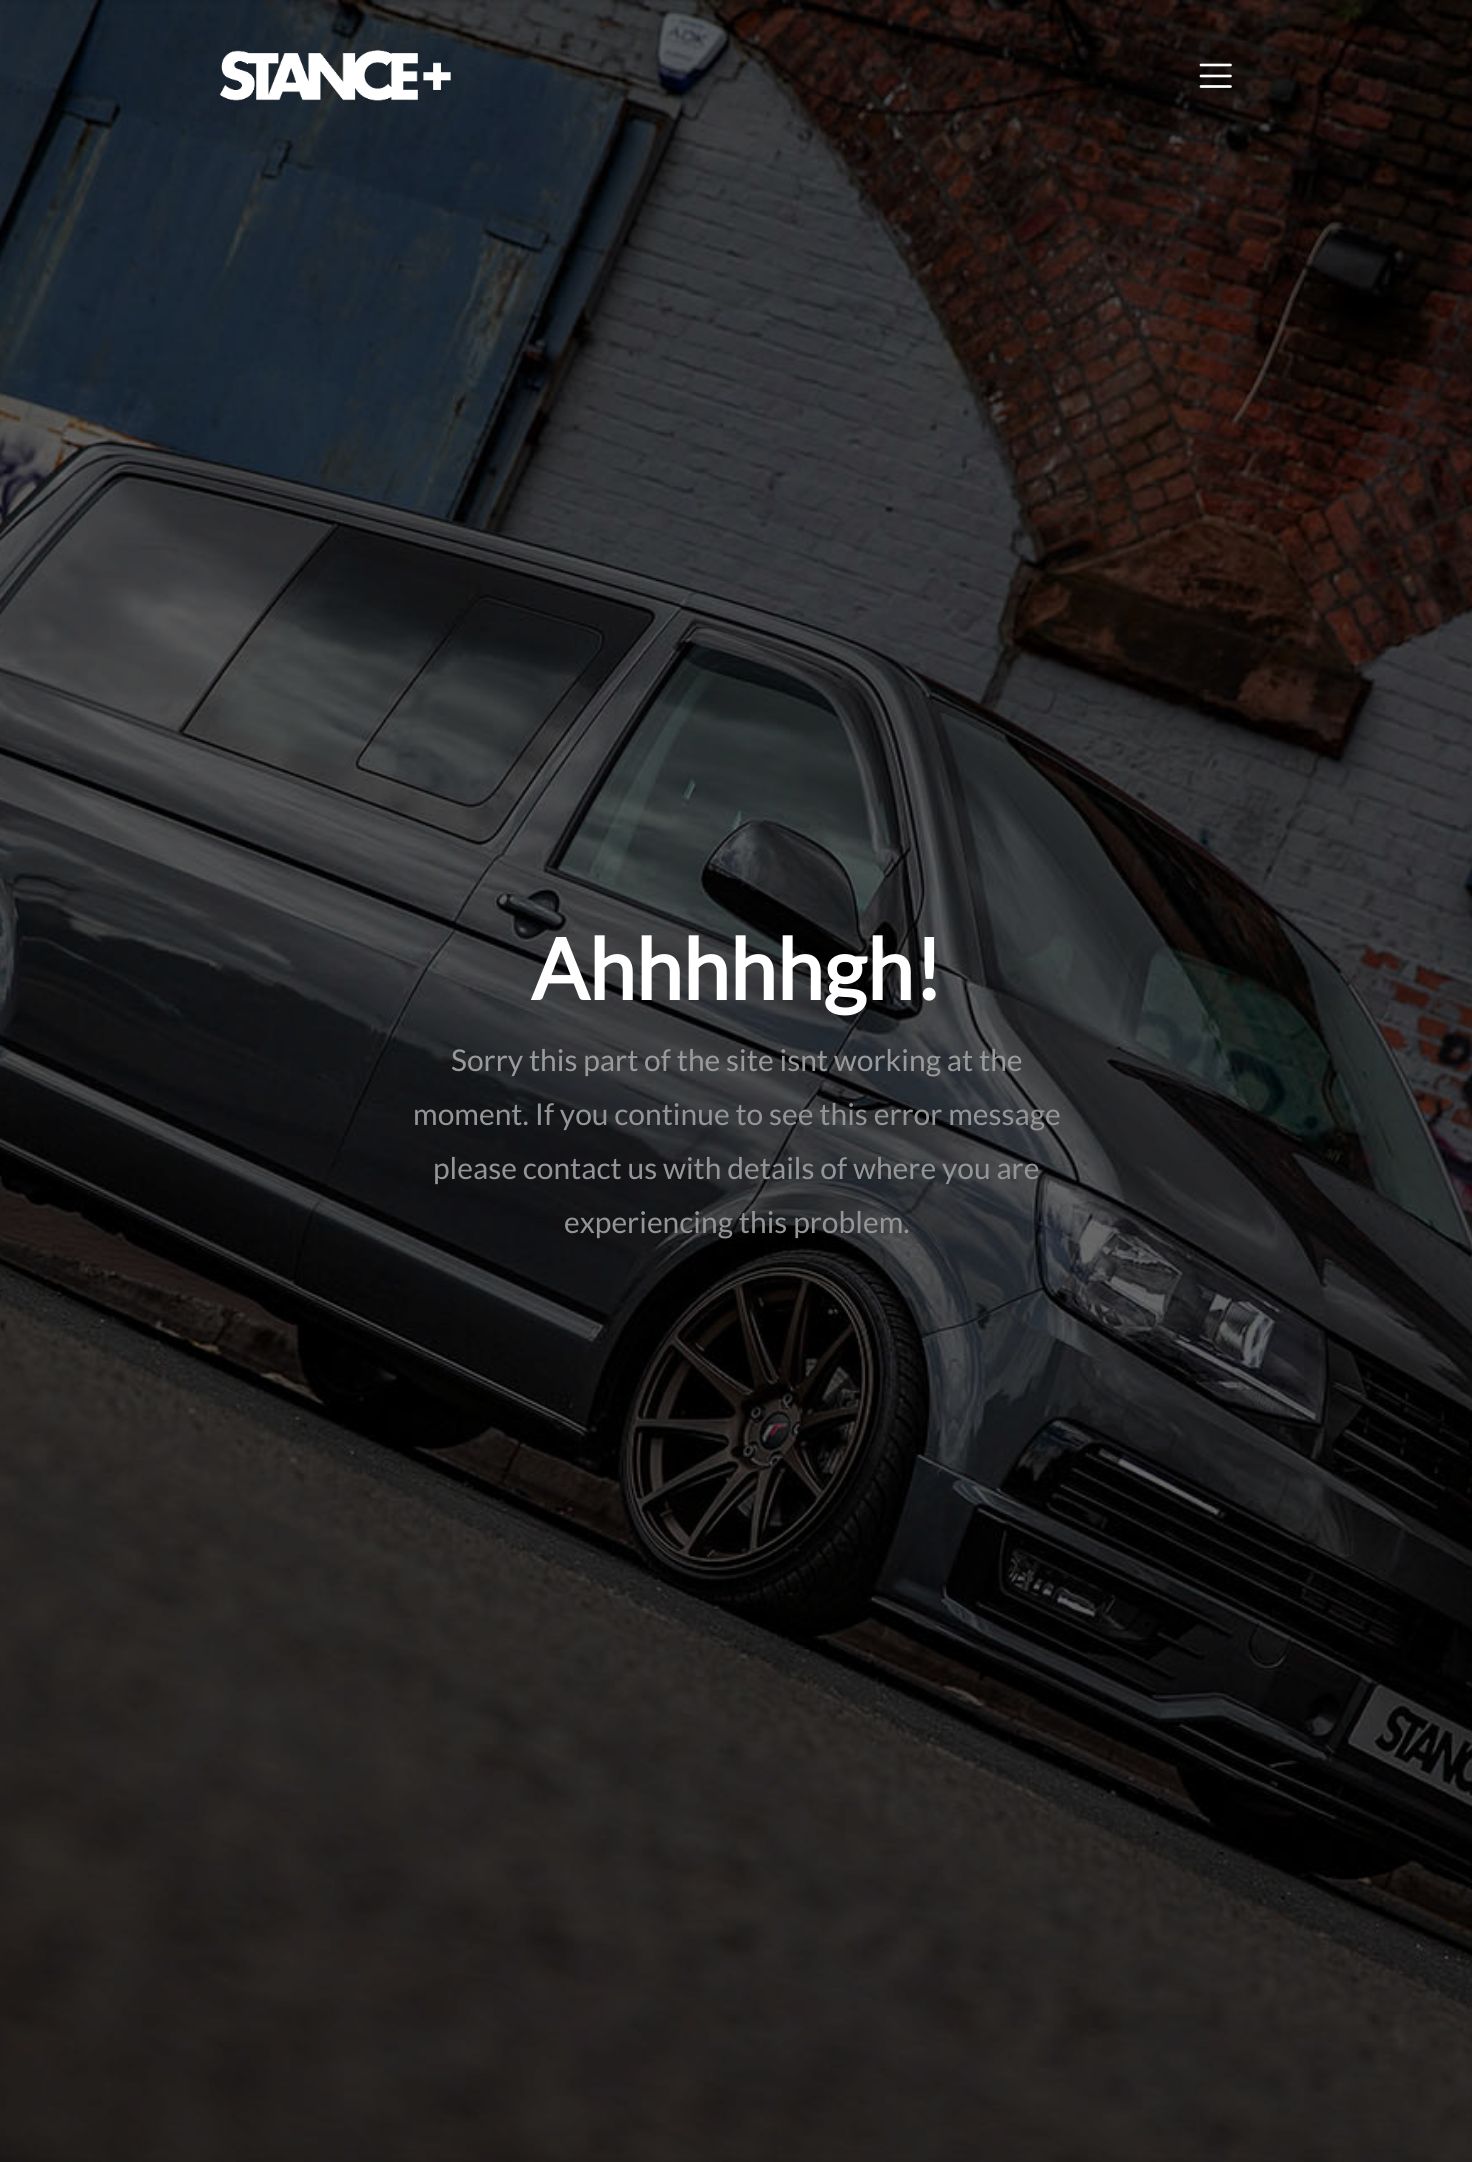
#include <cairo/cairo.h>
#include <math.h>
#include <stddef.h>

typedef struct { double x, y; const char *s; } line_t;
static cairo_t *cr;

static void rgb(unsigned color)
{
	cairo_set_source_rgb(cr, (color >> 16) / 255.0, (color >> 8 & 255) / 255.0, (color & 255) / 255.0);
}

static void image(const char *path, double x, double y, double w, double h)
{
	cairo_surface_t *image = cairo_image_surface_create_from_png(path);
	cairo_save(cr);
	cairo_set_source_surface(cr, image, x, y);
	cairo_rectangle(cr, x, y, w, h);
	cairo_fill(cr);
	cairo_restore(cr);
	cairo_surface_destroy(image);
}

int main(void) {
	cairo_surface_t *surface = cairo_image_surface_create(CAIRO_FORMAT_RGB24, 1472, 2162);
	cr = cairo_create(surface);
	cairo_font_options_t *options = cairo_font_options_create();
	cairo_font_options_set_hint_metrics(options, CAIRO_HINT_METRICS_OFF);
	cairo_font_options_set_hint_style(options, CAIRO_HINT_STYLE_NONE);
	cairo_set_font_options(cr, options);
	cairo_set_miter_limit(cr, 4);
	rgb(0xffffff);
	cairo_paint(cr);
	image("img/2.png", 0, 0, 1472, 2162);
	image("img/1.png", 219, 50, 232, 51);
	cairo_new_path(cr);
	cairo_move_to(cr, 1201, 65);
	cairo_line_to(cr, 1230.5, 65);
	cairo_move_to(cr, 1201, 76);
	cairo_line_to(cr, 1230.5, 76);
	cairo_move_to(cr, 1201, 86.5);
	cairo_line_to(cr, 1230.5, 86.5);
	rgb(0xffffff);
	cairo_set_line_width(cr, 2.7);
	cairo_set_line_cap(cr, CAIRO_LINE_CAP_ROUND);
	cairo_stroke(cr);
	cairo_select_font_face(cr, "Lato", CAIRO_FONT_SLANT_NORMAL, CAIRO_FONT_WEIGHT_BOLD);
	cairo_set_font_size(cr, 84.5);
	cairo_move_to(cr, 531, 1000);
	cairo_show_text(cr, "Ahhhhhgh!");
	cairo_select_font_face(cr, "Lato", CAIRO_FONT_SLANT_NORMAL, CAIRO_FONT_WEIGHT_NORMAL);
	cairo_set_font_size(cr, 30);
	rgb(0x999a9c);
	cairo_move_to(cr, 451, 1071);
	cairo_show_text(cr, "Sorry this part of the site isnt working at the");
	rgb(0x949596);
	{
		static const line_t items[] = {
			{413, 1125, "moment. If you continue to see this error message"},
			{433, 1179, "please contact us with details of where you are"},
			{564, 1233, "experiencing this problem."},
		};
		for (size_t i = 0; i < sizeof items / sizeof *items; i++) {
			cairo_move_to(cr, items[i].x, items[i].y);
			cairo_show_text(cr, items[i].s);
		}
	}
	cairo_surface_write_to_png(surface, "page.png");
	cairo_font_options_destroy(options);
	cairo_destroy(cr);
	cairo_surface_destroy(surface);
	return 0;
}
